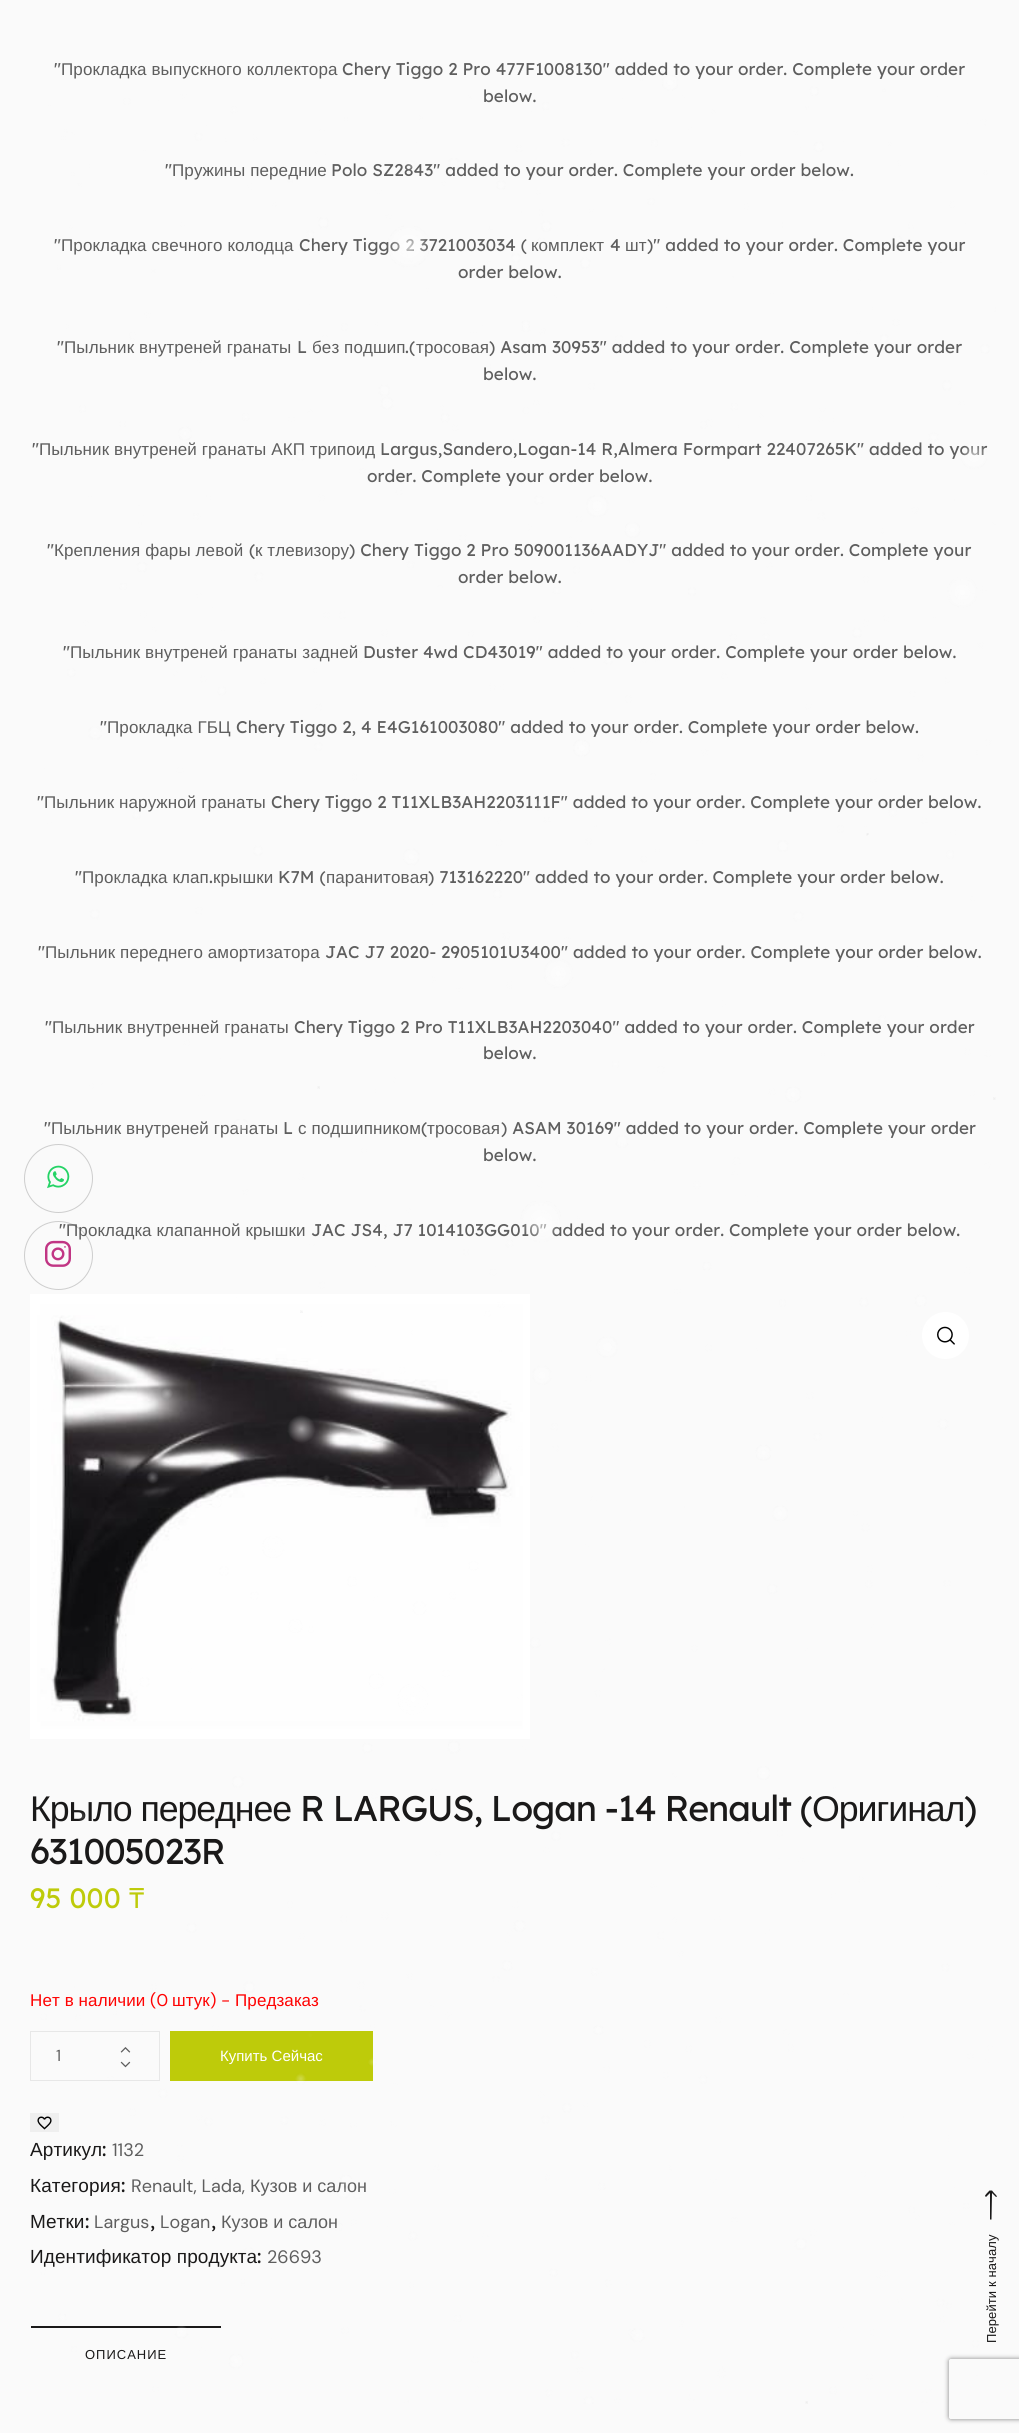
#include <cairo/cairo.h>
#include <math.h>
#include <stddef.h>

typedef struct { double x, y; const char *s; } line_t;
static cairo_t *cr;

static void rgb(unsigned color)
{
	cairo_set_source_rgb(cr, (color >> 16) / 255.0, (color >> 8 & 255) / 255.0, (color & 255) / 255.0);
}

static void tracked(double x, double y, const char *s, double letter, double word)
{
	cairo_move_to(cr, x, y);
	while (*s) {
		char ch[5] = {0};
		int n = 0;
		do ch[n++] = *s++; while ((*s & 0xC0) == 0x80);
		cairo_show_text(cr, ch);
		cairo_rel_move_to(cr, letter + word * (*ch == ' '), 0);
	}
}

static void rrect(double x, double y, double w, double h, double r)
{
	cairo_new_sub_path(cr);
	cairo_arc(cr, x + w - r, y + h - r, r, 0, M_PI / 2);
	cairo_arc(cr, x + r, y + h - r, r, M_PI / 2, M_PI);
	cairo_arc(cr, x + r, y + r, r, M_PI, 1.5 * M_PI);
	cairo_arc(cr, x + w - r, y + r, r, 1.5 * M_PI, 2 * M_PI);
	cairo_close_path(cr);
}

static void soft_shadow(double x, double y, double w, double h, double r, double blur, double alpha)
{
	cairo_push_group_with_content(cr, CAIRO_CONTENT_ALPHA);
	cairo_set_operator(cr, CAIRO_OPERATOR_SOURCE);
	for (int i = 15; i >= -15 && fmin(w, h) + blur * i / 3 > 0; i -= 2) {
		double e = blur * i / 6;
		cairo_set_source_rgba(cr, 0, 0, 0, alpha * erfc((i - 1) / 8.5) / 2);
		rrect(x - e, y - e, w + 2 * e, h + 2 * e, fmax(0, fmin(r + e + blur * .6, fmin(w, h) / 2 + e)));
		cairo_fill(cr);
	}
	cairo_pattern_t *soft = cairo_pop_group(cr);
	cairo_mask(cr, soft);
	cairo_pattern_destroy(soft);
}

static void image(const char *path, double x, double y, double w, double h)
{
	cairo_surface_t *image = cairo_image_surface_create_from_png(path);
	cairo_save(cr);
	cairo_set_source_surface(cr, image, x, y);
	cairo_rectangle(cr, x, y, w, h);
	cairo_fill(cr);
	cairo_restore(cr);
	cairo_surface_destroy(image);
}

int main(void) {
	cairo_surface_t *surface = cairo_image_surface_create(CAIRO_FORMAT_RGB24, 1019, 2433);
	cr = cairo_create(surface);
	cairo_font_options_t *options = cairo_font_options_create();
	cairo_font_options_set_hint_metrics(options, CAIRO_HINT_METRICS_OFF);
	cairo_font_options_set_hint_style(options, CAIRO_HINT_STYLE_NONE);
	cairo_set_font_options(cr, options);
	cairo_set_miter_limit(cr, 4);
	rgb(0xfafafa);
	cairo_paint(cr);
	image("img/1.png", 30, 1294, 500, 445);
	rgb(0xffffff);
	cairo_arc(cr, 945.5, 1335.5, 23.5, 0, 2 * M_PI);
	cairo_fill(cr);
	image("img/2.png", 937, 1326, 18, 19);
	cairo_rectangle(cr, 30.5, 2031.5, 129, 49);
	rgb(0xe7e7e7);
	cairo_set_line_width(cr, 1);
	cairo_stroke(cr);
	image("img/3.png", 120, 2047, 11, 6);
	image("img/4.png", 120, 2061, 11, 7);
	rgb(0xbecb0a);
	cairo_rectangle(cr, 170, 2031, 203, 50);
	cairo_fill(cr);
	rgb(0xefefef);
	cairo_rectangle(cr, 30, 2113, 29, 19);
	cairo_fill(cr);
	image("img/5.png", 37, 2116, 15, 14);
	rgb(0x1a1919);
	cairo_rectangle(cr, 31, 2326, 190, 2);
	cairo_fill(cr);
	cairo_arc(cr, 58.5, 1178.5, 34, 0, 2 * M_PI);
	rgb(0xcdcdcd);
	cairo_stroke(cr);
	image("img/7.png", 47, 1165, 23, 24);
	rgb(0x1a1919);
	cairo_new_path(cr);
	cairo_move_to(cr, 992, 2190.5);
	cairo_line_to(cr, 989.5, 2190.5);
	cairo_curve_to(cr, 988.5, 2191.5, 985, 2195, 985, 2196);
	cairo_line_to(cr, 986, 2197);
	cairo_line_to(cr, 990, 2193);
	cairo_line_to(cr, 990, 2219.5);
	cairo_line_to(cr, 991.5, 2219.5);
	cairo_line_to(cr, 992, 2193);
	cairo_line_to(cr, 996, 2197);
	cairo_curve_to(cr, 998.5, 2197, 994.5, 2193.5, 994, 2193);
	cairo_close_path(cr);
	cairo_fill(cr);
	cairo_save(cr);
	cairo_set_fill_rule(cr, CAIRO_FILL_RULE_EVEN_ODD);
	cairo_new_path(cr);
	cairo_move_to(cr, 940, 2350);
	cairo_line_to(cr, 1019, 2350);
	cairo_line_to(cr, 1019, 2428);
	cairo_line_to(cr, 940, 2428);
	cairo_close_path(cr);
	cairo_move_to(cr, 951, 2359);
	cairo_line_to(cr, 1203, 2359);
	cairo_curve_to(cr, 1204, 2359, 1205, 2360, 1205, 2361);
	cairo_line_to(cr, 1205, 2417);
	cairo_curve_to(cr, 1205, 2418, 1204, 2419, 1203, 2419);
	cairo_line_to(cr, 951, 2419);
	cairo_curve_to(cr, 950, 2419, 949, 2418, 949, 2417);
	cairo_line_to(cr, 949, 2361);
	cairo_curve_to(cr, 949, 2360, 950, 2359, 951, 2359);
	cairo_close_path(cr);
	cairo_clip(cr);
	rgb(0x808080);
	soft_shadow(949, 2359, 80, 60, 2, 2.5, 1);
	cairo_restore(cr);
	cairo_select_font_face(cr, "Lexend Deca", CAIRO_FONT_SLANT_NORMAL, CAIRO_FONT_WEIGHT_NORMAL);
	cairo_set_font_size(cr, 17);
	rgb(0x5e5e5e);
	tracked(54, 75, "\"", 0.1, 0);
	cairo_select_font_face(cr, "Liberation Sans", CAIRO_FONT_SLANT_NORMAL, CAIRO_FONT_WEIGHT_NORMAL);
	tracked(61, 75, "Прокладка выпускного коллектора", 0.1, 0);
	cairo_select_font_face(cr, "Lexend Deca", CAIRO_FONT_SLANT_NORMAL, CAIRO_FONT_WEIGHT_NORMAL);
	{
		static const line_t items[] = {
			{342, 75, "Chery Tiggo 2 Pro 477F1008130\" added to your order. Complete your order"},
			{483, 102, "below."},
			{165, 176, "\""},
		};
		for (size_t i = 0; i < sizeof items / sizeof *items; i++) {
			tracked(items[i].x, items[i].y, items[i].s, 0.1, 0);
		}
	}
	cairo_select_font_face(cr, "Liberation Sans", CAIRO_FONT_SLANT_NORMAL, CAIRO_FONT_WEIGHT_NORMAL);
	tracked(172, 176, "Пружины передние", 0.1, 0);
	cairo_select_font_face(cr, "Lexend Deca", CAIRO_FONT_SLANT_NORMAL, CAIRO_FONT_WEIGHT_NORMAL);
	tracked(331, 176, "Polo SZ2843\" added to your order. Complete your order below.", 0.1, 0);
	tracked(54, 251, "\"", 0.1, 0);
	cairo_select_font_face(cr, "Liberation Sans", CAIRO_FONT_SLANT_NORMAL, CAIRO_FONT_WEIGHT_NORMAL);
	tracked(61, 251, "Прокладка свечного колодца", 0.1, 0);
	cairo_select_font_face(cr, "Lexend Deca", CAIRO_FONT_SLANT_NORMAL, CAIRO_FONT_WEIGHT_NORMAL);
	tracked(299, 251, "Chery Tiggo 2 3721003034 (", 0.1, 0);
	cairo_select_font_face(cr, "Liberation Sans", CAIRO_FONT_SLANT_NORMAL, CAIRO_FONT_WEIGHT_NORMAL);
	tracked(531, 251, "комплект", 0.1, 0);
	cairo_select_font_face(cr, "Lexend Deca", CAIRO_FONT_SLANT_NORMAL, CAIRO_FONT_WEIGHT_NORMAL);
	tracked(610, 251, "4", 0.1, 0);
	cairo_select_font_face(cr, "Liberation Sans", CAIRO_FONT_SLANT_NORMAL, CAIRO_FONT_WEIGHT_NORMAL);
	tracked(625, 251, "шт", 0.1, 0);
	cairo_select_font_face(cr, "Lexend Deca", CAIRO_FONT_SLANT_NORMAL, CAIRO_FONT_WEIGHT_NORMAL);
	{
		static const line_t items[] = {
			{647, 251, ")\" added to your order. Complete your"},
			{458, 278, "order below."},
			{57, 353, "\""},
		};
		for (size_t i = 0; i < sizeof items / sizeof *items; i++) {
			tracked(items[i].x, items[i].y, items[i].s, 0.1, 0);
		}
	}
	cairo_select_font_face(cr, "Liberation Sans", CAIRO_FONT_SLANT_NORMAL, CAIRO_FONT_WEIGHT_NORMAL);
	tracked(64, 353, "Пыльник внутреней гранаты", 0.1, 0);
	cairo_select_font_face(cr, "Lexend Deca", CAIRO_FONT_SLANT_NORMAL, CAIRO_FONT_WEIGHT_NORMAL);
	tracked(297, 353, "L", 0.1, 0);
	cairo_select_font_face(cr, "Liberation Sans", CAIRO_FONT_SLANT_NORMAL, CAIRO_FONT_WEIGHT_NORMAL);
	tracked(312, 353, "без подшип", 0.1, 0);
	cairo_select_font_face(cr, "Lexend Deca", CAIRO_FONT_SLANT_NORMAL, CAIRO_FONT_WEIGHT_NORMAL);
	tracked(405, 353, ".(", 0.1, 0);
	cairo_select_font_face(cr, "Liberation Sans", CAIRO_FONT_SLANT_NORMAL, CAIRO_FONT_WEIGHT_NORMAL);
	tracked(416, 353, "тросовая", 0.1, 0);
	cairo_select_font_face(cr, "Lexend Deca", CAIRO_FONT_SLANT_NORMAL, CAIRO_FONT_WEIGHT_NORMAL);
	{
		static const line_t items[] = {
			{489, 353, ") Asam 30953\" added to your order. Complete your order"},
			{483, 380, "below."},
			{32, 455, "\""},
		};
		for (size_t i = 0; i < sizeof items / sizeof *items; i++) {
			tracked(items[i].x, items[i].y, items[i].s, 0.1, 0);
		}
	}
	cairo_select_font_face(cr, "Liberation Sans", CAIRO_FONT_SLANT_NORMAL, CAIRO_FONT_WEIGHT_NORMAL);
	tracked(39, 455, "Пыльник внутреней гранаты АКП трипоид", 0.1, 0);
	cairo_select_font_face(cr, "Lexend Deca", CAIRO_FONT_SLANT_NORMAL, CAIRO_FONT_WEIGHT_NORMAL);
	{
		static const line_t items[] = {
			{380, 455, "Largus,Sandero,Logan-14 R,Almera Formpart 22407265K\" added to your"},
			{367, 482, "order. Complete your order below."},
			{47, 556, "\""},
		};
		for (size_t i = 0; i < sizeof items / sizeof *items; i++) {
			tracked(items[i].x, items[i].y, items[i].s, 0.1, 0);
		}
	}
	cairo_select_font_face(cr, "Liberation Sans", CAIRO_FONT_SLANT_NORMAL, CAIRO_FONT_WEIGHT_NORMAL);
	tracked(54, 556, "Крепления фары левой", 0.1, 0);
	cairo_select_font_face(cr, "Lexend Deca", CAIRO_FONT_SLANT_NORMAL, CAIRO_FONT_WEIGHT_NORMAL);
	tracked(249, 556, "(", 0.1, 0);
	cairo_select_font_face(cr, "Liberation Sans", CAIRO_FONT_SLANT_NORMAL, CAIRO_FONT_WEIGHT_NORMAL);
	tracked(255, 556, "к тлевизору", 0.1, 0);
	cairo_select_font_face(cr, "Lexend Deca", CAIRO_FONT_SLANT_NORMAL, CAIRO_FONT_WEIGHT_NORMAL);
	{
		static const line_t items[] = {
			{349, 556, ") Chery Tiggo 2 Pro 509001136AADYJ\" added to your order. Complete your"},
			{458, 583, "order below."},
			{63, 658, "\""},
		};
		for (size_t i = 0; i < sizeof items / sizeof *items; i++) {
			tracked(items[i].x, items[i].y, items[i].s, 0.1, 0);
		}
	}
	cairo_select_font_face(cr, "Liberation Sans", CAIRO_FONT_SLANT_NORMAL, CAIRO_FONT_WEIGHT_NORMAL);
	tracked(70, 658, "Пыльник внутреней гранаты задней", 0.1, 0);
	cairo_select_font_face(cr, "Lexend Deca", CAIRO_FONT_SLANT_NORMAL, CAIRO_FONT_WEIGHT_NORMAL);
	tracked(363, 658, "Duster 4wd CD43019\" added to your order. Complete your order below.", 0.1, 0);
	tracked(100, 733, "\"", 0.1, 0);
	cairo_select_font_face(cr, "Liberation Sans", CAIRO_FONT_SLANT_NORMAL, CAIRO_FONT_WEIGHT_NORMAL);
	tracked(107, 733, "Прокладка ГБЦ", 0.1, 0);
	cairo_select_font_face(cr, "Lexend Deca", CAIRO_FONT_SLANT_NORMAL, CAIRO_FONT_WEIGHT_NORMAL);
	tracked(236, 733, "Chery Tiggo 2, 4 E4G161003080\" added to your order. Complete your order below.", 0.1, 0);
	tracked(37, 808, "\"", 0.1, 0);
	cairo_select_font_face(cr, "Liberation Sans", CAIRO_FONT_SLANT_NORMAL, CAIRO_FONT_WEIGHT_NORMAL);
	tracked(44, 808, "Пыльник наружной гранаты", 0.1, 0);
	cairo_select_font_face(cr, "Lexend Deca", CAIRO_FONT_SLANT_NORMAL, CAIRO_FONT_WEIGHT_NORMAL);
	tracked(271, 808, "Chery Tiggo 2 T11XLB3AH2203111F\" added to your order. Complete your order below.", 0.1, 0);
	tracked(75, 883, "\"", 0.1, 0);
	cairo_select_font_face(cr, "Liberation Sans", CAIRO_FONT_SLANT_NORMAL, CAIRO_FONT_WEIGHT_NORMAL);
	tracked(82, 883, "Прокладка клап", 0.1, 0);
	cairo_select_font_face(cr, "Lexend Deca", CAIRO_FONT_SLANT_NORMAL, CAIRO_FONT_WEIGHT_NORMAL);
	tracked(209, 883, ".", 0.1, 0);
	cairo_select_font_face(cr, "Liberation Sans", CAIRO_FONT_SLANT_NORMAL, CAIRO_FONT_WEIGHT_NORMAL);
	tracked(213, 883, "крышки", 0.1, 0);
	cairo_select_font_face(cr, "Lexend Deca", CAIRO_FONT_SLANT_NORMAL, CAIRO_FONT_WEIGHT_NORMAL);
	tracked(278, 883, "K7M (", 0.1, 0);
	cairo_select_font_face(cr, "Liberation Sans", CAIRO_FONT_SLANT_NORMAL, CAIRO_FONT_WEIGHT_NORMAL);
	tracked(326, 883, "паранитовая", 0.1, 0);
	cairo_select_font_face(cr, "Lexend Deca", CAIRO_FONT_SLANT_NORMAL, CAIRO_FONT_WEIGHT_NORMAL);
	tracked(428, 883, ") 713162220\" added to your order. Complete your order below.", 0.1, 0);
	tracked(38, 958, "\"", 0.1, 0);
	cairo_select_font_face(cr, "Liberation Sans", CAIRO_FONT_SLANT_NORMAL, CAIRO_FONT_WEIGHT_NORMAL);
	tracked(45, 958, "Пыльник переднего амортизатора", 0.1, 0);
	cairo_select_font_face(cr, "Lexend Deca", CAIRO_FONT_SLANT_NORMAL, CAIRO_FONT_WEIGHT_NORMAL);
	tracked(325, 958, "JAC J7 2020- 2905101U3400\" added to your order. Complete your order below.", 0.1, 0);
	tracked(45, 1033, "\"", 0.1, 0);
	cairo_select_font_face(cr, "Liberation Sans", CAIRO_FONT_SLANT_NORMAL, CAIRO_FONT_WEIGHT_NORMAL);
	tracked(52, 1033, "Пыльник внутренней гранаты", 0.1, 0);
	cairo_select_font_face(cr, "Lexend Deca", CAIRO_FONT_SLANT_NORMAL, CAIRO_FONT_WEIGHT_NORMAL);
	{
		static const line_t items[] = {
			{294, 1033, "Chery Tiggo 2 Pro T11XLB3AH2203040\" added to your order. Complete your order"},
			{483, 1059, "below."},
			{44, 1134, "\""},
		};
		for (size_t i = 0; i < sizeof items / sizeof *items; i++) {
			tracked(items[i].x, items[i].y, items[i].s, 0.1, 0);
		}
	}
	cairo_select_font_face(cr, "Liberation Sans", CAIRO_FONT_SLANT_NORMAL, CAIRO_FONT_WEIGHT_NORMAL);
	tracked(51, 1134, "Пыльник внутреней гранаты", 0.1, 0);
	cairo_select_font_face(cr, "Lexend Deca", CAIRO_FONT_SLANT_NORMAL, CAIRO_FONT_WEIGHT_NORMAL);
	tracked(283, 1134, "L", 0.1, 0);
	cairo_select_font_face(cr, "Liberation Sans", CAIRO_FONT_SLANT_NORMAL, CAIRO_FONT_WEIGHT_NORMAL);
	tracked(298, 1134, "с подшипником", 0.1, 0);
	cairo_select_font_face(cr, "Lexend Deca", CAIRO_FONT_SLANT_NORMAL, CAIRO_FONT_WEIGHT_NORMAL);
	tracked(421, 1134, "(", 0.1, 0);
	cairo_select_font_face(cr, "Liberation Sans", CAIRO_FONT_SLANT_NORMAL, CAIRO_FONT_WEIGHT_NORMAL);
	tracked(427, 1134, "тросовая", 0.1, 0);
	cairo_select_font_face(cr, "Lexend Deca", CAIRO_FONT_SLANT_NORMAL, CAIRO_FONT_WEIGHT_NORMAL);
	{
		static const line_t items[] = {
			{501, 1134, ") ASAM 30169\" added to your order. Complete your order"},
			{483, 1161, "below."},
			{59, 1236, "\""},
		};
		for (size_t i = 0; i < sizeof items / sizeof *items; i++) {
			tracked(items[i].x, items[i].y, items[i].s, 0.1, 0);
		}
	}
	cairo_select_font_face(cr, "Liberation Sans", CAIRO_FONT_SLANT_NORMAL, CAIRO_FONT_WEIGHT_NORMAL);
	tracked(66, 1236, "Прокладка клапанной крышки", 0.1, 0);
	cairo_select_font_face(cr, "Lexend Deca", CAIRO_FONT_SLANT_NORMAL, CAIRO_FONT_WEIGHT_NORMAL);
	tracked(311, 1236, "JAC JS4, J7 1014103GG010\" added to your order. Complete your order below.", 0.1, 0);
	cairo_select_font_face(cr, "Liberation Sans", CAIRO_FONT_SLANT_NORMAL, CAIRO_FONT_WEIGHT_NORMAL);
	cairo_set_font_size(cr, 35.75);
	rgb(0x1a1919);
	tracked(30, 1821, "Крыло переднее", -1.1, 0);
	cairo_select_font_face(cr, "Lexend Deca", CAIRO_FONT_SLANT_NORMAL, CAIRO_FONT_WEIGHT_NORMAL);
	tracked(300, 1821, "R LARGUS, Logan -14 Renault (", -1.1, 0);
	cairo_select_font_face(cr, "Liberation Sans", CAIRO_FONT_SLANT_NORMAL, CAIRO_FONT_WEIGHT_NORMAL);
	tracked(812, 1821, "Оригинал", -1.1, 0);
	cairo_select_font_face(cr, "Lexend Deca", CAIRO_FONT_SLANT_NORMAL, CAIRO_FONT_WEIGHT_NORMAL);
	tracked(964, 1821, ")", -1.1, 0);
	tracked(30, 1864, "631005023R", -1.1, 0);
	cairo_set_font_size(cr, 28);
	rgb(0xbecb0a);
	tracked(30, 1908, "95 000", 0.1, 0);
	cairo_select_font_face(cr, "Noto Sans", CAIRO_FONT_SLANT_NORMAL, CAIRO_FONT_WEIGHT_NORMAL);
	tracked(129, 1908, "₸", 2, 0);
	cairo_select_font_face(cr, "Liberation Sans", CAIRO_FONT_SLANT_NORMAL, CAIRO_FONT_WEIGHT_NORMAL);
	cairo_set_font_size(cr, 17);
	rgb(0xff0303);
	tracked(30, 2006, "Нет в наличии", 0.1, 0);
	cairo_select_font_face(cr, "DM Sans", CAIRO_FONT_SLANT_NORMAL, CAIRO_FONT_WEIGHT_NORMAL);
	tracked(150, 2006, "(0", 0.1, 0);
	cairo_select_font_face(cr, "Liberation Sans", CAIRO_FONT_SLANT_NORMAL, CAIRO_FONT_WEIGHT_NORMAL);
	tracked(172, 2006, "штук", 0.1, 0);
	cairo_select_font_face(cr, "DM Sans", CAIRO_FONT_SLANT_NORMAL, CAIRO_FONT_WEIGHT_NORMAL);
	tracked(210, 2006, ") -", 0.1, 0);
	cairo_select_font_face(cr, "Liberation Sans", CAIRO_FONT_SLANT_NORMAL, CAIRO_FONT_WEIGHT_NORMAL);
	tracked(235, 2006, "Предзаказ", 0.1, 0);
	cairo_select_font_face(cr, "DM Sans", CAIRO_FONT_SLANT_NORMAL, CAIRO_FONT_WEIGHT_NORMAL);
	cairo_set_font_size(cr, 16);
	rgb(0x5e5e5e);
	tracked(56, 2061, "1", 0.1, 0);
	cairo_select_font_face(cr, "Liberation Sans", CAIRO_FONT_SLANT_NORMAL, CAIRO_FONT_WEIGHT_NORMAL);
	cairo_set_font_size(cr, 15);
	rgb(0xffffff);
	cairo_move_to(cr, 220, 2061);
	cairo_show_text(cr, "Купить Сейчас");
	cairo_set_font_size(cr, 19);
	rgb(0x1a1919);
	tracked(30, 2156, "Артикул", 0.1, 0);
	cairo_select_font_face(cr, "Lexend Deca", CAIRO_FONT_SLANT_NORMAL, CAIRO_FONT_WEIGHT_NORMAL);
	tracked(102, 2156, ":", 0.1, 0);
	cairo_select_font_face(cr, "DM Sans", CAIRO_FONT_SLANT_NORMAL, CAIRO_FONT_WEIGHT_NORMAL);
	cairo_set_font_size(cr, 18);
	rgb(0x5e5e5e);
	cairo_move_to(cr, 112, 2156);
	cairo_show_text(cr, "1132");
	cairo_select_font_face(cr, "Liberation Sans", CAIRO_FONT_SLANT_NORMAL, CAIRO_FONT_WEIGHT_NORMAL);
	cairo_set_font_size(cr, 19);
	rgb(0x1a1919);
	tracked(30, 2192, "Категория", 0.1, 0);
	cairo_select_font_face(cr, "Lexend Deca", CAIRO_FONT_SLANT_NORMAL, CAIRO_FONT_WEIGHT_NORMAL);
	tracked(121, 2192, ":", 0.1, 0);
	cairo_select_font_face(cr, "DM Sans", CAIRO_FONT_SLANT_NORMAL, CAIRO_FONT_WEIGHT_NORMAL);
	cairo_set_font_size(cr, 18);
	rgb(0x5e5e5e);
	cairo_move_to(cr, 131, 2192);
	cairo_show_text(cr, "Renault, Lada,");
	cairo_select_font_face(cr, "Liberation Sans", CAIRO_FONT_SLANT_NORMAL, CAIRO_FONT_WEIGHT_NORMAL);
	cairo_move_to(cr, 250, 2192);
	cairo_show_text(cr, "Кузов и салон");
	cairo_set_font_size(cr, 19);
	rgb(0x1a1919);
	tracked(30, 2228, "Метки", 0.1, 0);
	cairo_select_font_face(cr, "Lexend Deca", CAIRO_FONT_SLANT_NORMAL, CAIRO_FONT_WEIGHT_NORMAL);
	tracked(85, 2228, ":", 0.1, 0);
	cairo_select_font_face(cr, "DM Sans", CAIRO_FONT_SLANT_NORMAL, CAIRO_FONT_WEIGHT_NORMAL);
	cairo_set_font_size(cr, 18);
	rgb(0x5e5e5e);
	cairo_move_to(cr, 94, 2228);
	cairo_show_text(cr, "Largus");
	cairo_select_font_face(cr, "Lexend Deca", CAIRO_FONT_SLANT_NORMAL, CAIRO_FONT_WEIGHT_NORMAL);
	cairo_set_font_size(cr, 19);
	rgb(0x1a1919);
	tracked(150, 2228, ",", 0.1, 0);
	cairo_select_font_face(cr, "DM Sans", CAIRO_FONT_SLANT_NORMAL, CAIRO_FONT_WEIGHT_NORMAL);
	cairo_set_font_size(cr, 18);
	rgb(0x5e5e5e);
	cairo_move_to(cr, 160, 2228);
	cairo_show_text(cr, "Logan");
	cairo_select_font_face(cr, "Lexend Deca", CAIRO_FONT_SLANT_NORMAL, CAIRO_FONT_WEIGHT_NORMAL);
	cairo_set_font_size(cr, 19);
	rgb(0x1a1919);
	tracked(211, 2228, ",", 0.1, 0);
	cairo_select_font_face(cr, "Liberation Sans", CAIRO_FONT_SLANT_NORMAL, CAIRO_FONT_WEIGHT_NORMAL);
	cairo_set_font_size(cr, 18);
	rgb(0x5e5e5e);
	cairo_move_to(cr, 221, 2228);
	cairo_show_text(cr, "Кузов и салон");
	cairo_set_font_size(cr, 19);
	rgb(0x1a1919);
	tracked(30, 2263, "Идентификатор продукта", 0.1, 0);
	cairo_select_font_face(cr, "Lexend Deca", CAIRO_FONT_SLANT_NORMAL, CAIRO_FONT_WEIGHT_NORMAL);
	tracked(257, 2263, ":", 0.1, 0);
	cairo_select_font_face(cr, "DM Sans", CAIRO_FONT_SLANT_NORMAL, CAIRO_FONT_WEIGHT_NORMAL);
	cairo_set_font_size(cr, 18);
	rgb(0x5e5e5e);
	cairo_move_to(cr, 267, 2263);
	cairo_show_text(cr, "26693");
	cairo_select_font_face(cr, "Liberation Sans", CAIRO_FONT_SLANT_NORMAL, CAIRO_FONT_WEIGHT_NORMAL);
	cairo_set_font_size(cr, 13);
	rgb(0x1a1919);
	tracked(85, 2359, "ОПИСАНИЕ", 1, 0);
	cairo_new_path(cr);
	cairo_arc(cr, 58.5, 1255.5, 34, 0, 2 * M_PI);
	cairo_set_source_rgba(cr, 0.102, 0.098, 0.098, 0.2);
	cairo_stroke(cr);
	image("img/8.png", 45, 1240, 26, 27);
	rgb(0x1a1919);
	cairo_save(cr);
	cairo_translate(cr, 996, 2343);
	cairo_rotate(cr, -90 * M_PI / 180);
	tracked(0, 0, "Перейти к началу", 0.1, 0);
	cairo_restore(cr);
	image("img/6.png", 40, 66, 956, 2338);
	cairo_surface_write_to_png(surface, "page.png");
	cairo_font_options_destroy(options);
	cairo_destroy(cr);
	cairo_surface_destroy(surface);
	return 0;
}
